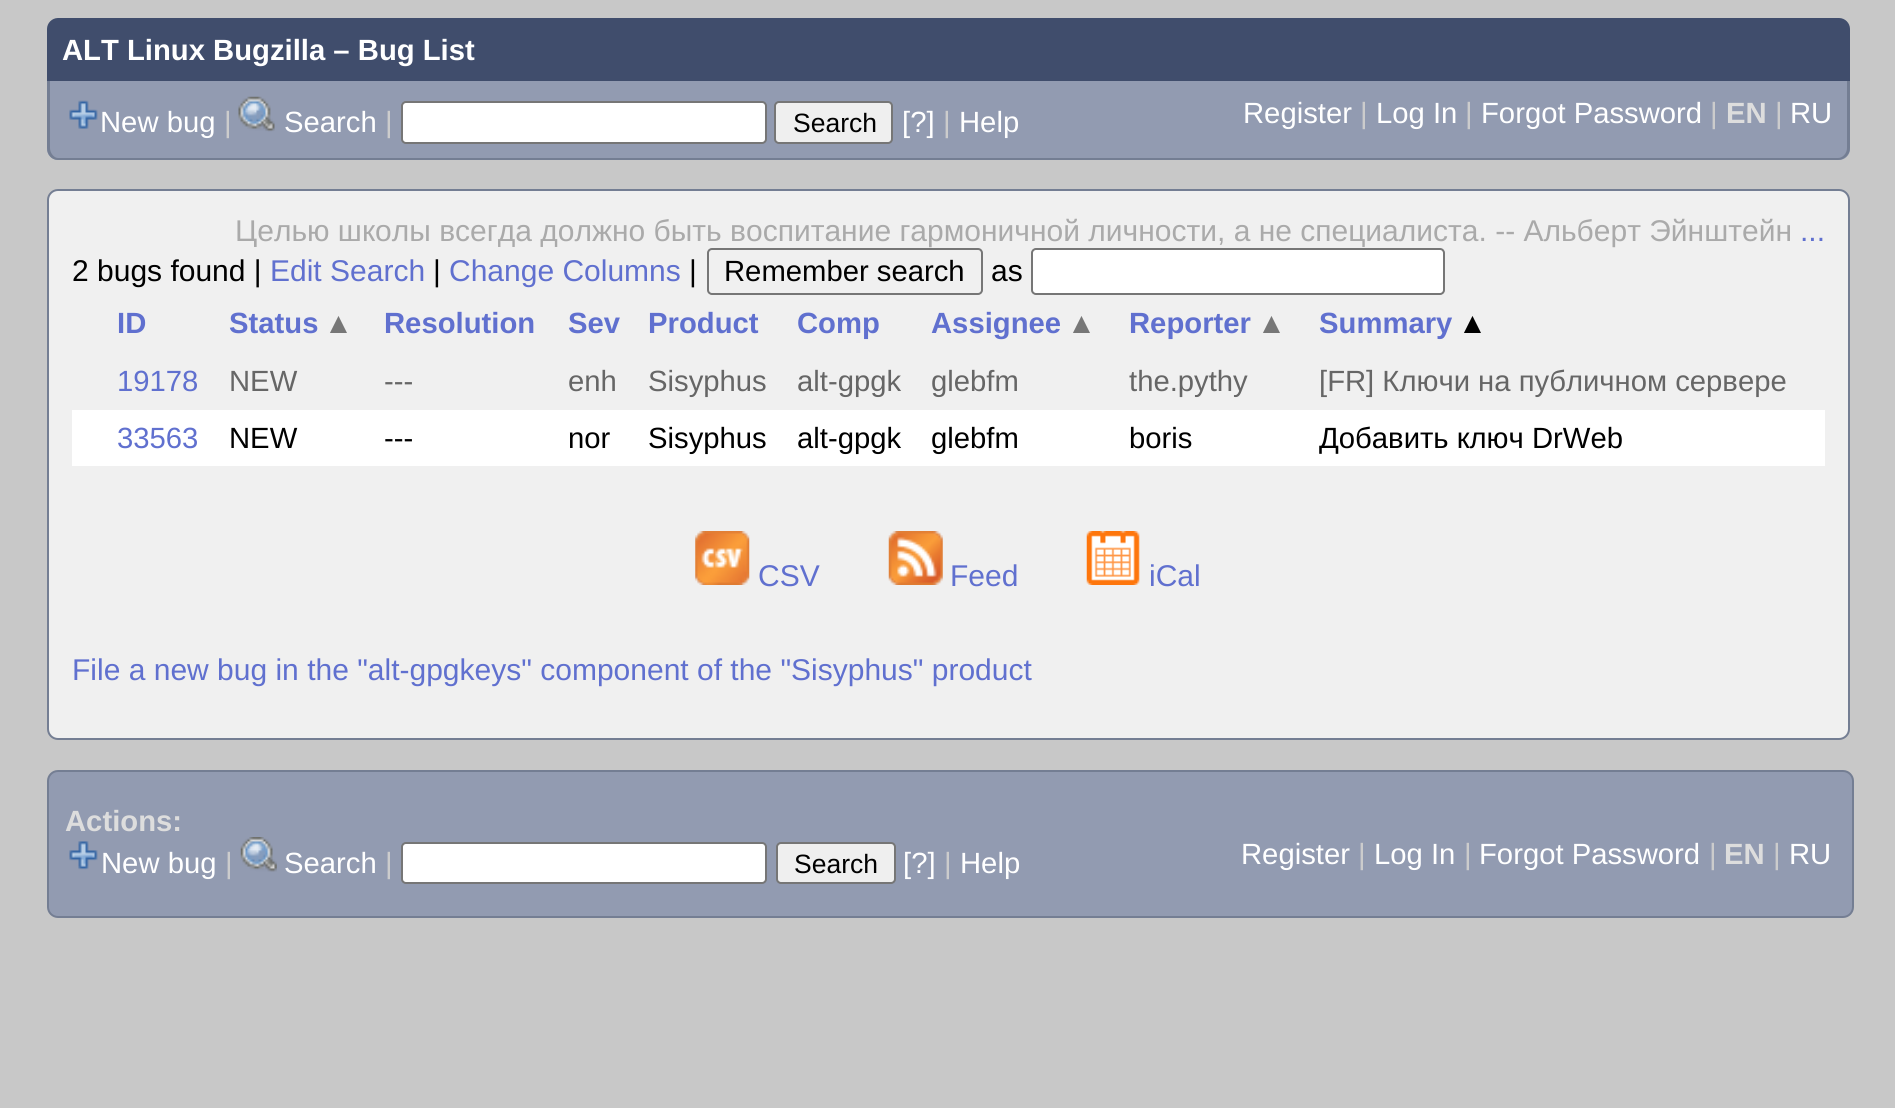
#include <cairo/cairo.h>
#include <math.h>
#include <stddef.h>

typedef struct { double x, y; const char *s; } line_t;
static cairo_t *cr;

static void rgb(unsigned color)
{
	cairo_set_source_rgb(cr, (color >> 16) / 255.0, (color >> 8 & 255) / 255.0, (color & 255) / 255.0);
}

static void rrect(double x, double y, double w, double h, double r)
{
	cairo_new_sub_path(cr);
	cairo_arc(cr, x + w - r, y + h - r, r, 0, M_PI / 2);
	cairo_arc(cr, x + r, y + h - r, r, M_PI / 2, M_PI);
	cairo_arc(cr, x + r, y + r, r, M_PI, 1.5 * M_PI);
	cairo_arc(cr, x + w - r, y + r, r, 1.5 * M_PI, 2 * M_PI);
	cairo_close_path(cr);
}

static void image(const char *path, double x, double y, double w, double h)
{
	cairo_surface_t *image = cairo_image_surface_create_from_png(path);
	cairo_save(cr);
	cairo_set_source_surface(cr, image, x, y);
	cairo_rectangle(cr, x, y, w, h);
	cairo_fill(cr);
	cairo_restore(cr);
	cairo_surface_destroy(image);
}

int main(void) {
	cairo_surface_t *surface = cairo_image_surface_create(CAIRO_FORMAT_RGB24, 1895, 1108);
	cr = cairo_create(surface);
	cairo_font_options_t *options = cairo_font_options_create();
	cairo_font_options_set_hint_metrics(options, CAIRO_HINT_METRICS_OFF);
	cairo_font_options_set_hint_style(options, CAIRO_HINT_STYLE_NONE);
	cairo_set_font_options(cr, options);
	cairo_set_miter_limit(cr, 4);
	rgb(0xc8c8c8);
	cairo_paint(cr);
	rgb(0x404d6c);
	cairo_new_path(cr);
	cairo_move_to(cr, 58, 18);
	cairo_line_to(cr, 1839, 18);
	cairo_curve_to(cr, 1845, 18, 1850, 23, 1850, 29);
	cairo_line_to(cr, 1850, 81);
	cairo_line_to(cr, 47, 81);
	cairo_line_to(cr, 47, 29);
	cairo_curve_to(cr, 47, 23, 52, 18, 58, 18);
	cairo_close_path(cr);
	cairo_fill(cr);
	rgb(0x929bb1);
	cairo_new_path(cr);
	cairo_move_to(cr, 47, 81);
	cairo_line_to(cr, 1850, 81);
	cairo_line_to(cr, 1850, 149);
	cairo_curve_to(cr, 1850, 155, 1845, 160, 1839, 160);
	cairo_line_to(cr, 58, 160);
	cairo_curve_to(cr, 52, 160, 47, 155, 47, 149);
	cairo_close_path(cr);
	cairo_fill(cr);
	rgb(0x747e93);
	cairo_set_fill_rule(cr, CAIRO_FILL_RULE_EVEN_ODD);
	cairo_new_path(cr);
	cairo_move_to(cr, 47, 81);
	cairo_line_to(cr, 1850, 81);
	cairo_line_to(cr, 1850, 148);
	cairo_curve_to(cr, 1850, 155, 1844, 160, 1838, 160);
	cairo_line_to(cr, 58, 160);
	cairo_curve_to(cr, 52, 160, 47, 155, 47, 148);
	cairo_close_path(cr);
	cairo_move_to(cr, 50, 81);
	cairo_line_to(cr, 1847, 81);
	cairo_line_to(cr, 1847, 148);
	cairo_curve_to(cr, 1847, 153, 1843, 158, 1838, 158);
	cairo_line_to(cr, 58, 158);
	cairo_curve_to(cr, 54, 158, 50, 153, 50, 148);
	cairo_close_path(cr);
	cairo_fill(cr);
	image("img/1.png", 69, 100, 29, 29);
	image("img/2.png", 238, 96, 37, 36);
	rgb(0xffffff);
	rrect(402, 102, 364, 41, 4);
	cairo_fill_preserve(cr);
	rgb(0x767676);
	cairo_stroke(cr);
	rgb(0xefefef);
	rrect(775, 102, 117, 41, 4);
	cairo_fill_preserve(cr);
	rgb(0x767676);
	cairo_stroke(cr);
	rgb(0xf0f0f0);
	rrect(48, 190, 1801, 549, 10);
	cairo_fill_preserve(cr);
	rgb(0x747e93);
	cairo_stroke(cr);
	rrect(708, 249, 274, 45, 4);
	rgb(0x767676);
	cairo_stroke(cr);
	rgb(0xffffff);
	rrect(1032, 249, 412, 45, 4);
	cairo_fill_preserve(cr);
	rgb(0x767676);
	cairo_stroke(cr);
	rgb(0xffffff);
	cairo_rectangle(cr, 72, 410, 1753, 56);
	cairo_fill(cr);
	image("img/3.png", 695, 531, 55, 54);
	image("img/4.png", 888, 531, 55, 54);
	image("img/5.png", 1086, 531, 54, 54);
	rgb(0x929bb1);
	rrect(48, 771, 1805, 146, 10);
	cairo_fill_preserve(cr);
	rgb(0x747e93);
	cairo_stroke(cr);
	image("img/6.png", 69, 841, 29, 29);
	image("img/7.png", 240, 837, 37, 35);
	rgb(0xffffff);
	rrect(402, 843, 364, 40, 4);
	cairo_fill_preserve(cr);
	rgb(0x767676);
	cairo_stroke(cr);
	rgb(0xefefef);
	rrect(777, 843, 118, 40, 4);
	cairo_fill_preserve(cr);
	rgb(0x767676);
	cairo_stroke(cr);
	cairo_select_font_face(cr, "Liberation Sans", CAIRO_FONT_SLANT_NORMAL, CAIRO_FONT_WEIGHT_BOLD);
	cairo_set_font_size(cr, 29.25);
	rgb(0xffffff);
	cairo_move_to(cr, 62, 60);
	cairo_show_text(cr, "ALT Linux Bugzilla – Bug List");
	cairo_select_font_face(cr, "Liberation Sans", CAIRO_FONT_SLANT_NORMAL, CAIRO_FONT_WEIGHT_NORMAL);
	cairo_move_to(cr, 100, 132);
	cairo_show_text(cr, "New bug");
	rgb(0xcccccc);
	cairo_move_to(cr, 224, 132);
	cairo_show_text(cr, "|");
	rgb(0xffffff);
	cairo_move_to(cr, 284, 132);
	cairo_show_text(cr, "Search");
	rgb(0xcccccc);
	cairo_move_to(cr, 385, 132);
	cairo_show_text(cr, "|");
	cairo_set_font_size(cr, 26.5);
	rgb(0x000000);
	cairo_move_to(cr, 793, 132);
	cairo_show_text(cr, "Search");
	cairo_set_font_size(cr, 29.25);
	rgb(0xffffff);
	cairo_move_to(cr, 902, 132);
	cairo_show_text(cr, "[?]");
	rgb(0xcccccc);
	cairo_move_to(cr, 943, 132);
	cairo_show_text(cr, "|");
	rgb(0xffffff);
	cairo_move_to(cr, 959, 132);
	cairo_show_text(cr, "Help");
	cairo_move_to(cr, 1243, 123);
	cairo_show_text(cr, "Register");
	rgb(0xcccccc);
	cairo_move_to(cr, 1360, 123);
	cairo_show_text(cr, "|");
	rgb(0xffffff);
	cairo_move_to(cr, 1376, 123);
	cairo_show_text(cr, "Log In");
	rgb(0xcccccc);
	cairo_move_to(cr, 1465, 123);
	cairo_show_text(cr, "|");
	rgb(0xffffff);
	cairo_move_to(cr, 1481, 123);
	cairo_show_text(cr, "Forgot Password");
	rgb(0xcccccc);
	cairo_move_to(cr, 1710, 123);
	cairo_show_text(cr, "|");
	cairo_select_font_face(cr, "Liberation Sans", CAIRO_FONT_SLANT_NORMAL, CAIRO_FONT_WEIGHT_BOLD);
	rgb(0xdddddd);
	cairo_move_to(cr, 1726, 123);
	cairo_show_text(cr, "EN");
	cairo_select_font_face(cr, "Liberation Sans", CAIRO_FONT_SLANT_NORMAL, CAIRO_FONT_WEIGHT_NORMAL);
	rgb(0xcccccc);
	cairo_move_to(cr, 1775, 123);
	cairo_show_text(cr, "|");
	rgb(0xffffff);
	cairo_move_to(cr, 1790, 123);
	cairo_show_text(cr, "RU");
	cairo_set_font_size(cr, 30);
	rgb(0xaaaaaa);
	cairo_move_to(cr, 235, 241);
	cairo_show_text(cr, "Целью школы всегда должно быть воспитание гармоничной личности, а не специалиста. -- Альберт Эйнштейн");
	rgb(0x6070cf);
	cairo_move_to(cr, 1800, 241);
	cairo_show_text(cr, "...");
	rgb(0x000000);
	cairo_move_to(cr, 72, 281);
	cairo_show_text(cr, "2 bugs found |");
	rgb(0x6070cf);
	cairo_move_to(cr, 270, 281);
	cairo_show_text(cr, "Edit Search");
	rgb(0x000000);
	cairo_move_to(cr, 433, 281);
	cairo_show_text(cr, "|");
	rgb(0x6070cf);
	cairo_move_to(cr, 449, 281);
	cairo_show_text(cr, "Change Columns");
	rgb(0x000000);
	cairo_move_to(cr, 689, 281);
	cairo_show_text(cr, "|");
	cairo_set_font_size(cr, 29.25);
	cairo_move_to(cr, 724, 281);
	cairo_show_text(cr, "Remember search");
	cairo_set_font_size(cr, 30);
	cairo_move_to(cr, 991, 281);
	cairo_show_text(cr, "as");
	cairo_select_font_face(cr, "Liberation Sans", CAIRO_FONT_SLANT_NORMAL, CAIRO_FONT_WEIGHT_BOLD);
	cairo_set_font_size(cr, 29.25);
	rgb(0x6070cf);
	cairo_move_to(cr, 117, 333);
	cairo_show_text(cr, "ID");
	cairo_move_to(cr, 229, 333);
	cairo_show_text(cr, "Status");
	rgb(0x777777);
	cairo_move_to(cr, 324, 333);
	cairo_show_text(cr, "▲");
	rgb(0x6070cf);
	{
		static const line_t items[] = {
			{384, 333, "Resolution"},
			{568, 333, "Sev"},
			{648, 333, "Product"},
			{797, 333, "Comp"},
			{931, 333, "Assignee"},
		};
		for (size_t i = 0; i < sizeof items / sizeof *items; i++) {
			cairo_move_to(cr, items[i].x, items[i].y);
			cairo_show_text(cr, items[i].s);
		}
	}
	rgb(0x777777);
	cairo_move_to(cr, 1067, 333);
	cairo_show_text(cr, "▲");
	rgb(0x6070cf);
	cairo_move_to(cr, 1129, 333);
	cairo_show_text(cr, "Reporter");
	rgb(0x777777);
	cairo_move_to(cr, 1257, 333);
	cairo_show_text(cr, "▲");
	rgb(0x6070cf);
	cairo_move_to(cr, 1319, 333);
	cairo_show_text(cr, "Summary");
	rgb(0x000000);
	cairo_move_to(cr, 1458, 333);
	cairo_show_text(cr, "▲");
	cairo_select_font_face(cr, "Liberation Sans", CAIRO_FONT_SLANT_NORMAL, CAIRO_FONT_WEIGHT_NORMAL);
	rgb(0x6070cf);
	cairo_move_to(cr, 117, 391);
	cairo_show_text(cr, "19178");
	rgb(0x666666);
	{
		static const line_t items[] = {
			{229, 391, "NEW"},
			{384, 391, "---"},
			{568, 391, "enh"},
			{648, 391, "Sisyphus"},
			{797, 391, "alt-gpgk"},
			{931, 391, "glebfm"},
			{1129, 391, "the.pythy"},
			{1319, 391, "[FR] Ключи на публичном сервере"},
		};
		for (size_t i = 0; i < sizeof items / sizeof *items; i++) {
			cairo_move_to(cr, items[i].x, items[i].y);
			cairo_show_text(cr, items[i].s);
		}
	}
	rgb(0x6070cf);
	cairo_move_to(cr, 117, 448);
	cairo_show_text(cr, "33563");
	rgb(0x000000);
	{
		static const line_t items[] = {
			{229, 448, "NEW"},
			{384, 448, "---"},
			{568, 448, "nor"},
			{648, 448, "Sisyphus"},
			{797, 448, "alt-gpgk"},
			{931, 448, "glebfm"},
			{1129, 448, "boris"},
			{1319, 448, "Добавить ключ DrWeb"},
		};
		for (size_t i = 0; i < sizeof items / sizeof *items; i++) {
			cairo_move_to(cr, items[i].x, items[i].y);
			cairo_show_text(cr, items[i].s);
		}
	}
	cairo_set_font_size(cr, 30);
	rgb(0x6070cf);
	{
		static const line_t items[] = {
			{758, 586, "CSV"},
			{950, 586, "Feed"},
			{1149, 586, "iCal"},
			{72, 680, "File a new bug in the \"alt-gpgkeys\" component of the \"Sisyphus\" product"},
		};
		for (size_t i = 0; i < sizeof items / sizeof *items; i++) {
			cairo_move_to(cr, items[i].x, items[i].y);
			cairo_show_text(cr, items[i].s);
		}
	}
	cairo_select_font_face(cr, "Liberation Sans", CAIRO_FONT_SLANT_NORMAL, CAIRO_FONT_WEIGHT_BOLD);
	cairo_set_font_size(cr, 29.25);
	rgb(0xdddddd);
	cairo_move_to(cr, 65, 831);
	cairo_show_text(cr, "Actions:");
	cairo_select_font_face(cr, "Liberation Sans", CAIRO_FONT_SLANT_NORMAL, CAIRO_FONT_WEIGHT_NORMAL);
	rgb(0xffffff);
	cairo_move_to(cr, 101, 873);
	cairo_show_text(cr, "New bug");
	rgb(0xcccccc);
	cairo_move_to(cr, 225, 873);
	cairo_show_text(cr, "|");
	rgb(0xffffff);
	cairo_move_to(cr, 284, 873);
	cairo_show_text(cr, "Search");
	rgb(0xcccccc);
	cairo_move_to(cr, 385, 873);
	cairo_show_text(cr, "|");
	cairo_set_font_size(cr, 26.5);
	rgb(0x000000);
	cairo_move_to(cr, 794, 873);
	cairo_show_text(cr, "Search");
	cairo_set_font_size(cr, 29.25);
	rgb(0xffffff);
	cairo_move_to(cr, 903, 873);
	cairo_show_text(cr, "[?]");
	rgb(0xcccccc);
	cairo_move_to(cr, 944, 873);
	cairo_show_text(cr, "|");
	rgb(0xffffff);
	cairo_move_to(cr, 960, 873);
	cairo_show_text(cr, "Help");
	cairo_move_to(cr, 1241, 864);
	cairo_show_text(cr, "Register");
	rgb(0xcccccc);
	cairo_move_to(cr, 1358, 864);
	cairo_show_text(cr, "|");
	rgb(0xffffff);
	cairo_move_to(cr, 1374, 864);
	cairo_show_text(cr, "Log In");
	rgb(0xcccccc);
	cairo_move_to(cr, 1464, 864);
	cairo_show_text(cr, "|");
	rgb(0xffffff);
	cairo_move_to(cr, 1479, 864);
	cairo_show_text(cr, "Forgot Password");
	rgb(0xcccccc);
	cairo_move_to(cr, 1709, 864);
	cairo_show_text(cr, "|");
	cairo_select_font_face(cr, "Liberation Sans", CAIRO_FONT_SLANT_NORMAL, CAIRO_FONT_WEIGHT_BOLD);
	rgb(0xdddddd);
	cairo_move_to(cr, 1724, 864);
	cairo_show_text(cr, "EN");
	cairo_select_font_face(cr, "Liberation Sans", CAIRO_FONT_SLANT_NORMAL, CAIRO_FONT_WEIGHT_NORMAL);
	rgb(0xcccccc);
	cairo_move_to(cr, 1773, 864);
	cairo_show_text(cr, "|");
	rgb(0xffffff);
	cairo_move_to(cr, 1789, 864);
	cairo_show_text(cr, "RU");
	cairo_surface_write_to_png(surface, "page.png");
	cairo_font_options_destroy(options);
	cairo_destroy(cr);
	cairo_surface_destroy(surface);
	return 0;
}
